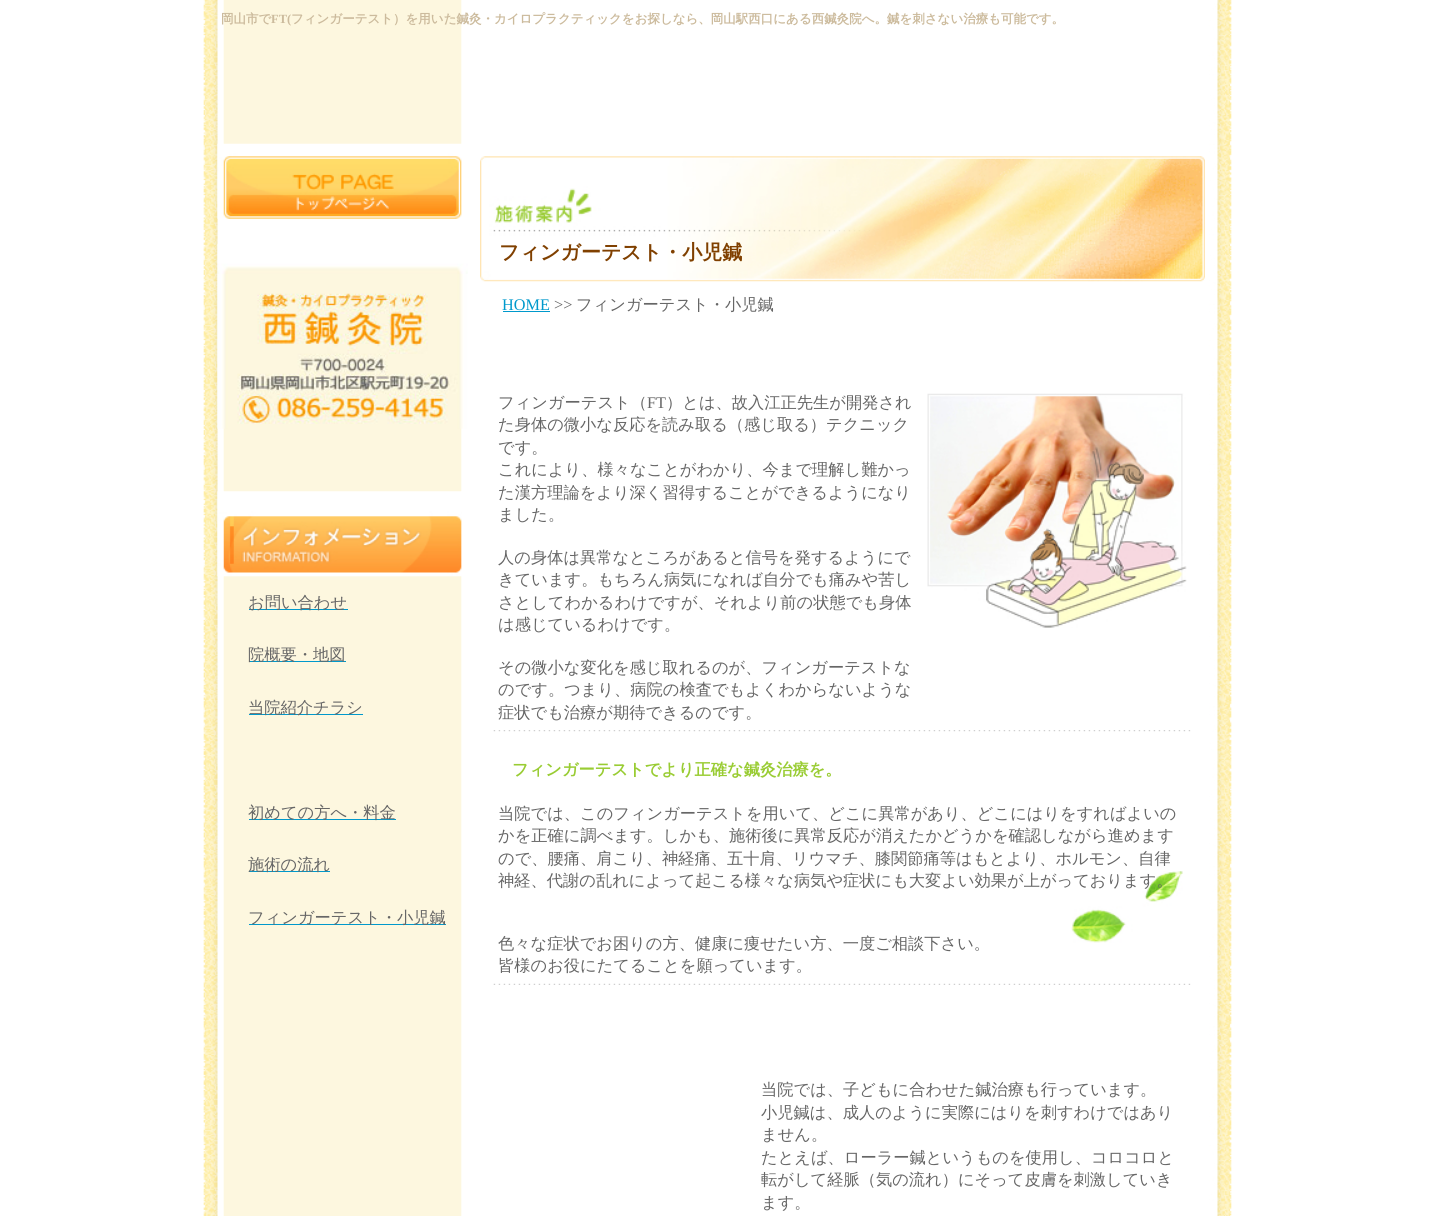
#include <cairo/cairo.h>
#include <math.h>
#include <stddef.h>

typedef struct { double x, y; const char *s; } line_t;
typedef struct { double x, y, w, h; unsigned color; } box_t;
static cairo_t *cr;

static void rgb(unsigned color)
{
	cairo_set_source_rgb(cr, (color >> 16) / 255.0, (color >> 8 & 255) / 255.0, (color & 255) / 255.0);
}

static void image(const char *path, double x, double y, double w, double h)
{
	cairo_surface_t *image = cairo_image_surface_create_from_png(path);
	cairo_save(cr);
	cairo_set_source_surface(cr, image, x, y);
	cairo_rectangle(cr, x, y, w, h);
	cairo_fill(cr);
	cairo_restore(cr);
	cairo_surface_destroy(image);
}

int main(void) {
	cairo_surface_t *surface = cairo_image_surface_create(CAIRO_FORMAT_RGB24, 1433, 1216);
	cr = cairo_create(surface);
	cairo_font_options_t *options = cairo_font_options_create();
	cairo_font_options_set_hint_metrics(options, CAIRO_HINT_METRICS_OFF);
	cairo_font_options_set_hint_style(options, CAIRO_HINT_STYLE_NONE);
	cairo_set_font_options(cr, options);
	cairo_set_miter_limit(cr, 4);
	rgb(0xffffff);
	cairo_paint(cr);
	image("img/1.png", 203, 0, 1029, 1216);
	rgb(0xffffff);
	cairo_rectangle(cr, 223, 144, 239, 100);
	cairo_fill(cr);
	image("img/2.png", 217, 143, 245, 76);
	image("img/3.png", 217, 243, 251, 186);
	image("img/4.png", 217, 491, 245, 86);
	{
		static const box_t items[] = {
			{249, 609, 99, 1, 0x0099cc},
			{249, 661, 97, 1, 0x0099cc},
			{249, 714, 114, 1, 0x0099cc},
			{249, 819, 147, 1, 0x0099cc},
			{249, 871, 81, 1, 0x0099cc},
			{249, 924, 197, 1, 0x0099cc},
		};
		for (size_t i = 0; i < sizeof items / sizeof *items; i++) {
			rgb(items[i].color);
			cairo_rectangle(cr, items[i].x, items[i].y, items[i].w, items[i].h);
			cairo_fill(cr);
		}
	}
	image("img/5.png", 480, 156, 725, 84);
	image("img/6.png", 480, 240, 725, 42);
	cairo_rectangle(cr, 503, 311, 47, 1);
	cairo_fill(cr);
	image("img/7.png", 927, 393, 260, 235);
	image("img/8.png", 493, 730, 698, 2);
	image("img/9.png", 1071, 871, 112, 72);
	image("img/10.png", 493, 983, 698, 2);
	cairo_select_font_face(cr, "WenQuanYi Zen Hei", CAIRO_FONT_SLANT_NORMAL, CAIRO_FONT_WEIGHT_BOLD);
	cairo_set_font_size(cr, 12.5);
	rgb(0xccbb9d);
	cairo_move_to(cr, 221, 23);
	cairo_show_text(cr, "岡山市で");
	cairo_select_font_face(cr, "Liberation Serif", CAIRO_FONT_SLANT_NORMAL, CAIRO_FONT_WEIGHT_BOLD);
	cairo_move_to(cr, 271, 23);
	cairo_show_text(cr, "FT(");
	cairo_select_font_face(cr, "WenQuanYi Zen Hei", CAIRO_FONT_SLANT_NORMAL, CAIRO_FONT_WEIGHT_BOLD);
	cairo_move_to(cr, 291, 23);
	cairo_show_text(cr, "フィンガーテスト）を用いた鍼灸・カイロプラクティックをお探しなら、岡山駅西口にある西鍼灸院へ。鍼を刺さない治療も可能です。");
	cairo_select_font_face(cr, "WenQuanYi Zen Hei Medium", CAIRO_FONT_SLANT_NORMAL, CAIRO_FONT_WEIGHT_NORMAL);
	cairo_set_font_size(cr, 16.25);
	rgb(0x666666);
	{
		static const line_t items[] = {
			{248, 608, "お問い合わせ"},
			{248, 660, "院概要・地図"},
			{248, 713, "当院紹介チラシ"},
			{248, 818, "初めての方へ・料金"},
			{248, 870, "施術の流れ"},
			{248, 923, "フィンガーテスト・小児鍼"},
		};
		for (size_t i = 0; i < sizeof items / sizeof *items; i++) {
			cairo_move_to(cr, items[i].x, items[i].y);
			cairo_show_text(cr, items[i].s);
		}
	}
	cairo_select_font_face(cr, "WenQuanYi Zen Hei", CAIRO_FONT_SLANT_NORMAL, CAIRO_FONT_WEIGHT_BOLD);
	cairo_set_font_size(cr, 20);
	rgb(0x804000);
	cairo_move_to(cr, 499, 259);
	cairo_show_text(cr, "フィンガーテスト・小児鍼");
	cairo_select_font_face(cr, "Liberation Serif", CAIRO_FONT_SLANT_NORMAL, CAIRO_FONT_WEIGHT_NORMAL);
	cairo_set_font_size(cr, 16.25);
	rgb(0x0099cc);
	cairo_move_to(cr, 502, 310);
	cairo_show_text(cr, "HOME");
	rgb(0x666666);
	cairo_move_to(cr, 554, 310);
	cairo_show_text(cr, ">>");
	cairo_select_font_face(cr, "WenQuanYi Zen Hei Medium", CAIRO_FONT_SLANT_NORMAL, CAIRO_FONT_WEIGHT_NORMAL);
	cairo_move_to(cr, 576, 310);
	cairo_show_text(cr, "フィンガーテスト・小児鍼");
	cairo_move_to(cr, 498, 408);
	cairo_show_text(cr, "フィンガーテスト（");
	cairo_select_font_face(cr, "Liberation Serif", CAIRO_FONT_SLANT_NORMAL, CAIRO_FONT_WEIGHT_NORMAL);
	cairo_move_to(cr, 647, 408);
	cairo_show_text(cr, "FT");
	cairo_select_font_face(cr, "WenQuanYi Zen Hei Medium", CAIRO_FONT_SLANT_NORMAL, CAIRO_FONT_WEIGHT_NORMAL);
	{
		static const line_t items[] = {
			{666, 408, "）とは、故入江正先生が開発され"},
			{498, 430, "た身体の微小な反応を読み取る（感じ取る）テクニック"},
			{498, 453, "です。"},
			{498, 475, "これにより、様々なことがわかり、今まで理解し難かっ"},
			{498, 498, "た漢方理論をより深く習得することができるようになり"},
			{498, 520, "ました。"},
			{498, 563, "人の身体は異常なところがあると信号を発するようにで"},
			{498, 585, "きています。もちろん病気になれば自分でも痛みや苦し"},
			{498, 608, "さとしてわかるわけですが、それより前の状態でも身体"},
			{498, 630, "は感じているわけです。"},
			{498, 673, "その微小な変化を感じ取れるのが、フィンガーテストな"},
			{498, 695, "のです。つまり、病院の検査でもよくわからないような"},
			{498, 718, "症状でも治療が期待できるのです。"},
		};
		for (size_t i = 0; i < sizeof items / sizeof *items; i++) {
			cairo_move_to(cr, items[i].x, items[i].y);
			cairo_show_text(cr, items[i].s);
		}
	}
	cairo_select_font_face(cr, "WenQuanYi Zen Hei", CAIRO_FONT_SLANT_NORMAL, CAIRO_FONT_WEIGHT_BOLD);
	rgb(0x99cc33);
	cairo_move_to(cr, 512, 775);
	cairo_show_text(cr, "フィンガーテストでより正確な鍼灸治療を。");
	cairo_select_font_face(cr, "WenQuanYi Zen Hei Medium", CAIRO_FONT_SLANT_NORMAL, CAIRO_FONT_WEIGHT_NORMAL);
	rgb(0x666666);
	{
		static const line_t items[] = {
			{498, 819, "当院では、このフィンガーテストを用いて、どこに異常があり、どこにはりをすればよいの"},
			{498, 841, "かを正確に調べます。しかも、施術後に異常反応が消えたかどうかを確認しながら進めます"},
			{498, 864, "ので、腰痛、肩こり、神経痛、五十肩、リウマチ、膝関節痛等はもとより、ホルモン、自律"},
			{498, 886, "神経、代謝の乱れによって起こる様々な病気や症状にも大変よい効果が上がっております。"},
			{498, 949, "色々な症状でお困りの方、健康に痩せたい方、一度ご相談下さい。"},
			{498, 971, "皆様のお役にたてることを願っています。"},
			{761, 1095, "当院では、子どもに合わせた鍼治療も行っています。"},
			{761, 1118, "小児鍼は、成人のように実際にはりを刺すわけではあり"},
			{761, 1140, "ません。"},
			{761, 1163, "たとえば、ローラー鍼というものを使用し、コロコロと"},
			{761, 1185, "転がして経脈（気の流れ）にそって皮膚を刺激していき"},
			{761, 1208, "ます。"},
		};
		for (size_t i = 0; i < sizeof items / sizeof *items; i++) {
			cairo_move_to(cr, items[i].x, items[i].y);
			cairo_show_text(cr, items[i].s);
		}
	}
	cairo_surface_write_to_png(surface, "page.png");
	cairo_font_options_destroy(options);
	cairo_destroy(cr);
	cairo_surface_destroy(surface);
	return 0;
}
